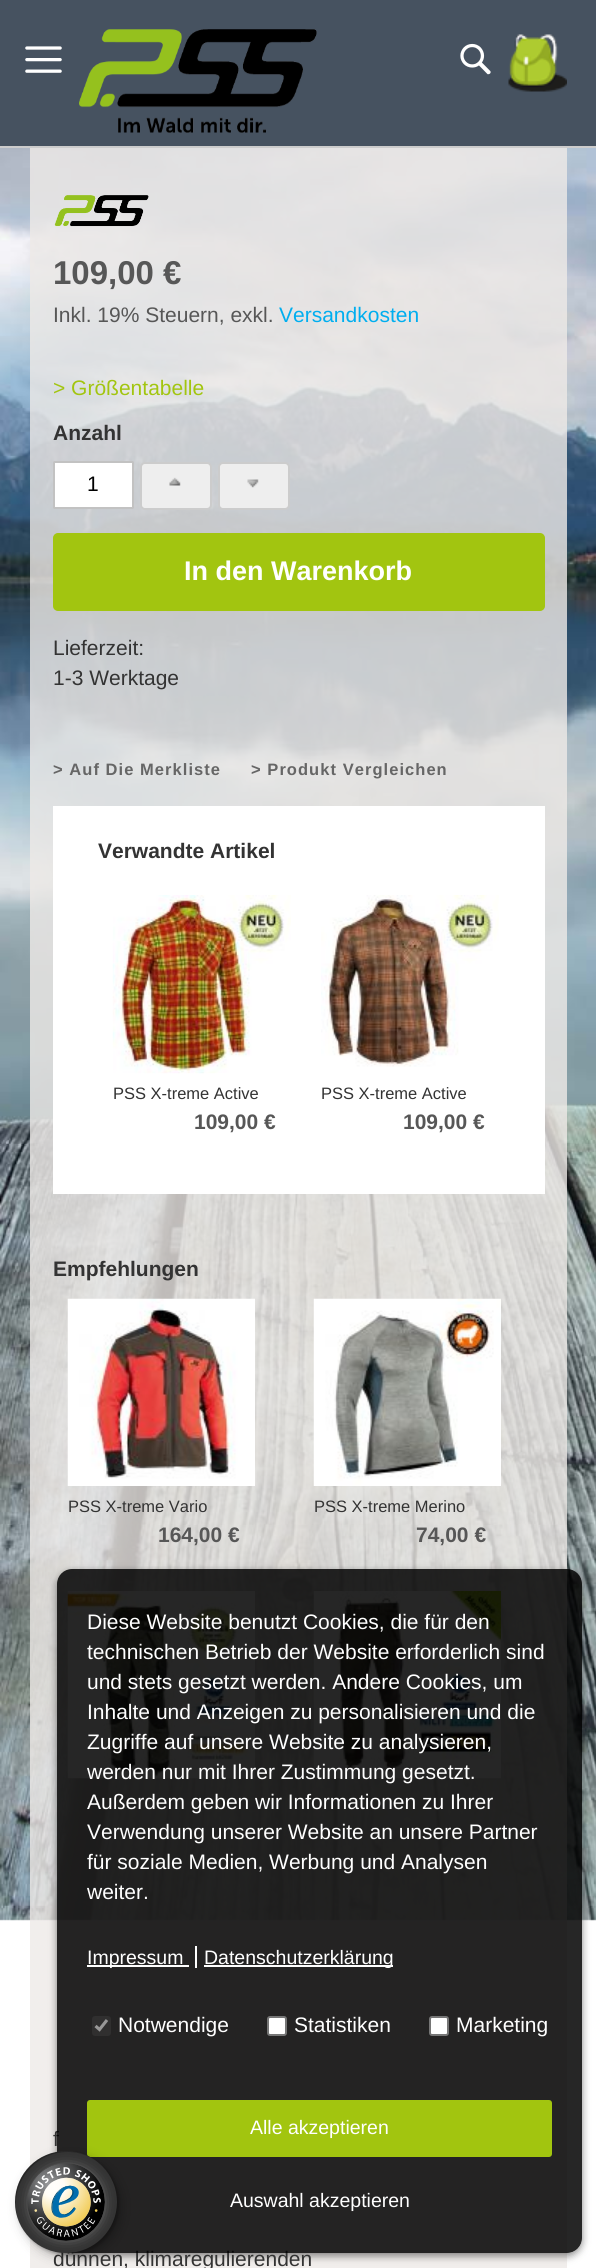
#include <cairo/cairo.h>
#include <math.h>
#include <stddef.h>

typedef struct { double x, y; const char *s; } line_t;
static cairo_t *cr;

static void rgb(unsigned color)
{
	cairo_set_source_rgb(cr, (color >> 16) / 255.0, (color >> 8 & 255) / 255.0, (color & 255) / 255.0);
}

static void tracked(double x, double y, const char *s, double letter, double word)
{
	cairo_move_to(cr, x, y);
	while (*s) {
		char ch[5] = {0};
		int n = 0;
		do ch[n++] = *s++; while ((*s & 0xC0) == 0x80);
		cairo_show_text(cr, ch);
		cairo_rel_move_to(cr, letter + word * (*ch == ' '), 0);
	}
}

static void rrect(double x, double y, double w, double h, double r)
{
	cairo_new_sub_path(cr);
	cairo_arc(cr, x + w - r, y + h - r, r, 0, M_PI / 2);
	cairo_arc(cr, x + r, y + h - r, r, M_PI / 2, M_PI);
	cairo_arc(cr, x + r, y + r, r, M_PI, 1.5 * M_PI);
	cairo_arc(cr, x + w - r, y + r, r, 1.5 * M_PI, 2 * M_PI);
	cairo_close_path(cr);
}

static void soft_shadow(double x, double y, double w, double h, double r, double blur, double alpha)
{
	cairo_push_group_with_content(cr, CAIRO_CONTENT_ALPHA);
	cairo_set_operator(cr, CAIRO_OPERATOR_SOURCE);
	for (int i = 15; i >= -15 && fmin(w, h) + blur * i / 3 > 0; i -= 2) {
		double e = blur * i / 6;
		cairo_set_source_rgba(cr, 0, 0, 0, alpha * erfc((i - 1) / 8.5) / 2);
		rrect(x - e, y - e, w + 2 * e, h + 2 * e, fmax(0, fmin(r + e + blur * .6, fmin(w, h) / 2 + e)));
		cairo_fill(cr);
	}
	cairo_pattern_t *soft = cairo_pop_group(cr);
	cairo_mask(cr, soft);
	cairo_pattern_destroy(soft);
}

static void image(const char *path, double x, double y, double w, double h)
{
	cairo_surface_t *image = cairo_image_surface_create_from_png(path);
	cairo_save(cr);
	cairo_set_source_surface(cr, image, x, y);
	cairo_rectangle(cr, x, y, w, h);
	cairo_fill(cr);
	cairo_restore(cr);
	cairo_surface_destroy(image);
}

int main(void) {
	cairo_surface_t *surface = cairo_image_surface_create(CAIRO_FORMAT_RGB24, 596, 2268);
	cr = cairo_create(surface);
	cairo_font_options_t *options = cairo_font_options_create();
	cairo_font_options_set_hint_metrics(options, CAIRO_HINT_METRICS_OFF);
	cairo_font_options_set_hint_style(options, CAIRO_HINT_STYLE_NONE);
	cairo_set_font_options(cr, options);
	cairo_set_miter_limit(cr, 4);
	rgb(0xffffff);
	cairo_paint(cr);
	rgb(0xf1eeec);
	cairo_rectangle(cr, 30, 1919, 537, 349);
	cairo_fill(cr);
	image("img/1.png", 0, 148, 596, 1773);
	rgb(0xcccccc);
	cairo_rectangle(cr, 0, 146, 596, 2);
	cairo_fill(cr);
	rgb(0x465260);
	cairo_rectangle(cr, 0, 0, 596, 146);
	cairo_fill(cr);
	image("img/2.png", 25, 46, 37, 27);
	image("img/3.png", 79, 29, 238, 104);
	image("img/4.png", 460, 43, 31, 32);
	image("img/5.png", 508, 34, 59, 58);
	image("img/6.png", 54, 195, 95, 32);
	rgb(0xffffff);
	rrect(54, 462, 79, 46, 0.5);
	cairo_fill_preserve(cr);
	rgb(0xc2c2c2);
	cairo_stroke(cr);
	rgb(0xeeeeee);
	rrect(141, 463, 70, 46, 4);
	cairo_fill_preserve(cr);
	rgb(0xcccccc);
	cairo_stroke(cr);
	image("img/7.png", 169, 477, 12, 9);
	rgb(0xeeeeee);
	rrect(219, 463, 70, 46, 4);
	cairo_fill_preserve(cr);
	rgb(0xcccccc);
	cairo_stroke(cr);
	image("img/8.png", 247, 479, 12, 9);
	rgb(0xa2c510);
	rrect(54, 534, 490, 76, 4);
	cairo_fill_preserve(cr);
	cairo_stroke(cr);
	rgb(0xffffff);
	cairo_rectangle(cr, 53, 806, 492, 388);
	cairo_fill(cr);
	image("img/9.png", 112, 895, 179, 179);
	image("img/10.png", 321, 895, 178, 172);
	image("img/11.png", 67, 1298, 188, 188);
	image("img/12.png", 313, 1298, 188, 188);
	image("img/13.png", 67, 1591, 188, 188);
	image("img/14.png", 313, 1591, 188, 188);
	cairo_save(cr);
	cairo_set_fill_rule(cr, CAIRO_FILL_RULE_EVEN_ODD);
	cairo_new_path(cr);
	cairo_move_to(cr, 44, 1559);
	cairo_line_to(cr, 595, 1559);
	cairo_line_to(cr, 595, 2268);
	cairo_line_to(cr, 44, 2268);
	cairo_close_path(cr);
	cairo_move_to(cr, 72, 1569);
	cairo_line_to(cr, 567, 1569);
	cairo_curve_to(cr, 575.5, 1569, 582, 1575.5, 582, 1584);
	cairo_line_to(cr, 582, 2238);
	cairo_curve_to(cr, 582, 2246.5, 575.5, 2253, 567, 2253);
	cairo_line_to(cr, 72, 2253);
	cairo_curve_to(cr, 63.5, 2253, 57, 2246.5, 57, 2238);
	cairo_line_to(cr, 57, 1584);
	cairo_curve_to(cr, 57, 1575.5, 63.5, 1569, 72, 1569);
	cairo_close_path(cr);
	cairo_clip(cr);
	rgb(0x000000);
	soft_shadow(57, 1572, 525, 684, 15, 4, 0.47);
	cairo_restore(cr);
	cairo_select_font_face(cr, "Liberation Sans", CAIRO_FONT_SLANT_NORMAL, CAIRO_FONT_WEIGHT_BOLD);
	cairo_set_font_size(cr, 33);
	rgb(0x575757);
	cairo_move_to(cr, 53, 284);
	cairo_show_text(cr, "109,00 €");
	cairo_select_font_face(cr, "Liberation Sans", CAIRO_FONT_SLANT_NORMAL, CAIRO_FONT_WEIGHT_NORMAL);
	cairo_set_font_size(cr, 21);
	cairo_move_to(cr, 53, 322);
	cairo_show_text(cr, "Inkl. 19% Steuern, exkl.");
	rgb(0x00aeef);
	cairo_move_to(cr, 279, 322);
	cairo_show_text(cr, "Versandkosten");
	rgb(0xa2c510);
	cairo_move_to(cr, 53, 395);
	cairo_show_text(cr, "> Größentabelle");
	cairo_select_font_face(cr, "Liberation Sans", CAIRO_FONT_SLANT_NORMAL, CAIRO_FONT_WEIGHT_BOLD);
	rgb(0x333333);
	cairo_move_to(cr, 53, 440);
	cairo_show_text(cr, "Anzahl");
	cairo_select_font_face(cr, "Liberation Sans", CAIRO_FONT_SLANT_NORMAL, CAIRO_FONT_WEIGHT_NORMAL);
	rgb(0x000000);
	cairo_move_to(cr, 87, 491);
	cairo_show_text(cr, "1");
	cairo_select_font_face(cr, "Liberation Sans", CAIRO_FONT_SLANT_NORMAL, CAIRO_FONT_WEIGHT_BOLD);
	cairo_set_font_size(cr, 27);
	rgb(0xffffff);
	cairo_move_to(cr, 184, 580);
	cairo_show_text(cr, "In den Warenkorb");
	cairo_select_font_face(cr, "Liberation Sans", CAIRO_FONT_SLANT_NORMAL, CAIRO_FONT_WEIGHT_NORMAL);
	cairo_set_font_size(cr, 21);
	rgb(0x333333);
	cairo_move_to(cr, 53, 655);
	cairo_show_text(cr, "Lieferzeit:");
	cairo_move_to(cr, 53, 685);
	cairo_show_text(cr, "1-3 Werktage");
	cairo_select_font_face(cr, "Liberation Sans", CAIRO_FONT_SLANT_NORMAL, CAIRO_FONT_WEIGHT_BOLD);
	cairo_set_font_size(cr, 16.5);
	rgb(0x666666);
	tracked(53, 775, "> Auf Die Merkliste", 1.05, 0);
	tracked(251, 775, "> Produkt Vergleichen", 1.05, 0);
	cairo_set_font_size(cr, 21);
	rgb(0x333333);
	cairo_move_to(cr, 98, 858);
	cairo_show_text(cr, "Verwandte Artikel");
	cairo_select_font_face(cr, "Liberation Sans", CAIRO_FONT_SLANT_NORMAL, CAIRO_FONT_WEIGHT_NORMAL);
	cairo_set_font_size(cr, 16.5);
	cairo_move_to(cr, 113, 1099);
	cairo_show_text(cr, "PSS X-treme Active");
	cairo_select_font_face(cr, "Liberation Sans", CAIRO_FONT_SLANT_NORMAL, CAIRO_FONT_WEIGHT_BOLD);
	cairo_set_font_size(cr, 21);
	rgb(0x575757);
	cairo_move_to(cr, 194, 1129);
	cairo_show_text(cr, "109,00 €");
	cairo_select_font_face(cr, "Liberation Sans", CAIRO_FONT_SLANT_NORMAL, CAIRO_FONT_WEIGHT_NORMAL);
	cairo_set_font_size(cr, 16.5);
	rgb(0x333333);
	cairo_move_to(cr, 321, 1099);
	cairo_show_text(cr, "PSS X-treme Active");
	cairo_select_font_face(cr, "Liberation Sans", CAIRO_FONT_SLANT_NORMAL, CAIRO_FONT_WEIGHT_BOLD);
	cairo_set_font_size(cr, 21);
	rgb(0x575757);
	cairo_move_to(cr, 403, 1129);
	cairo_show_text(cr, "109,00 €");
	rgb(0x333333);
	cairo_move_to(cr, 53, 1276);
	cairo_show_text(cr, "Empfehlungen");
	cairo_select_font_face(cr, "Liberation Sans", CAIRO_FONT_SLANT_NORMAL, CAIRO_FONT_WEIGHT_NORMAL);
	cairo_set_font_size(cr, 16.5);
	cairo_move_to(cr, 68, 1512);
	cairo_show_text(cr, "PSS X-treme Vario");
	cairo_select_font_face(cr, "Liberation Sans", CAIRO_FONT_SLANT_NORMAL, CAIRO_FONT_WEIGHT_BOLD);
	cairo_set_font_size(cr, 21);
	rgb(0x575757);
	cairo_move_to(cr, 158, 1542);
	cairo_show_text(cr, "164,00 €");
	cairo_select_font_face(cr, "Liberation Sans", CAIRO_FONT_SLANT_NORMAL, CAIRO_FONT_WEIGHT_NORMAL);
	cairo_set_font_size(cr, 16.5);
	rgb(0x333333);
	cairo_move_to(cr, 314, 1512);
	cairo_show_text(cr, "PSS X-treme Merino");
	cairo_select_font_face(cr, "Liberation Sans", CAIRO_FONT_SLANT_NORMAL, CAIRO_FONT_WEIGHT_BOLD);
	cairo_set_font_size(cr, 21);
	rgb(0x575757);
	cairo_move_to(cr, 416, 1542);
	cairo_show_text(cr, "74,00 €");
	cairo_select_font_face(cr, "Liberation Sans", CAIRO_FONT_SLANT_NORMAL, CAIRO_FONT_WEIGHT_NORMAL);
	rgb(0x333333);
	cairo_move_to(cr, 53, 2146);
	cairo_show_text(cr, "f");
	cairo_move_to(cr, 53, 2266);
	cairo_show_text(cr, "dünnen, klimaregulierenden");
	cairo_set_source_rgba(cr, 0, 0, 0, 0.85);
	rrect(57, 1569, 525, 684, 15);
	cairo_fill(cr);
	rgb(0xffffff);
	{
		static const line_t items[] = {
			{87, 1629, "Diese Website benutzt Cookies, die für den"},
			{87, 1659, "technischen Betrieb der Website erforderlich sind"},
			{87, 1689, "und stets gesetzt werden. Andere Cookies, um"},
			{87, 1719, "Inhalte und Anzeigen zu personalisieren und die"},
			{87, 1749, "Zugriffe auf unsere Website zu analysieren,"},
			{87, 1779, "werden nur mit Ihrer Zustimmung gesetzt."},
			{87, 1809, "Außerdem geben wir Informationen zu Ihrer"},
			{87, 1839, "Verwendung unserer Website an unsere Partner"},
			{87, 1869, "für soziale Medien, Werbung und Analysen"},
			{87, 1899, "weiter."},
		};
		for (size_t i = 0; i < sizeof items / sizeof *items; i++) {
			cairo_move_to(cr, items[i].x, items[i].y);
			cairo_show_text(cr, items[i].s);
		}
	}
	cairo_rectangle(cr, 87, 1965, 102, 2);
	cairo_fill(cr);
	cairo_set_font_size(cr, 19.5);
	cairo_move_to(cr, 87, 1964);
	cairo_show_text(cr, "Impressum");
	cairo_rectangle(cr, 195, 1946, 2, 22);
	cairo_fill(cr);
	cairo_rectangle(cr, 204, 1965, 189, 2);
	cairo_fill(cr);
	cairo_move_to(cr, 204, 1964);
	cairo_show_text(cr, "Datenschutzerklärung");
	cairo_set_source_rgba(cr, 0.463, 0.463, 0.463, 0.15);
	rrect(92, 2016, 19, 20, 3);
	cairo_fill(cr);
	cairo_new_path(cr);
	cairo_move_to(cr, 95.5, 2026);
	cairo_line_to(cr, 99.5, 2029.5);
	cairo_line_to(cr, 107, 2020);
	cairo_set_source_rgba(cr, 1, 1, 1, 0.5);
	cairo_set_line_width(cr, 3.1);
	cairo_stroke(cr);
	cairo_set_font_size(cr, 21);
	rgb(0xffffff);
	cairo_move_to(cr, 118, 2032);
	cairo_show_text(cr, "Notwendige");
	rrect(268, 2017, 18, 18, 2);
	cairo_fill_preserve(cr);
	rgb(0x767676);
	cairo_set_line_width(cr, 2);
	cairo_stroke(cr);
	rgb(0xffffff);
	cairo_move_to(cr, 294, 2032);
	cairo_show_text(cr, "Statistiken");
	rrect(430, 2017, 18, 18, 2);
	cairo_fill_preserve(cr);
	rgb(0x767676);
	cairo_stroke(cr);
	rgb(0xffffff);
	cairo_move_to(cr, 456, 2032);
	cairo_show_text(cr, "Marketing");
	rgb(0xa2c50f);
	rrect(87, 2100, 465, 57, 3);
	cairo_fill(cr);
	rgb(0x000000);
	soft_shadow(17, 2153, 102, 102, 51, 1.5, 0.25);
	soft_shadow(20, 2156, 102, 102, 51, 6, 0.25);
	rgb(0x333333);
	cairo_arc(cr, 66, 2202, 51, 0, 2 * M_PI);
	cairo_fill(cr);
	cairo_set_source_rgba(cr, 0, 0, 0, 0.25);
	cairo_new_path(cr);
	cairo_move_to(cr, 68, 2152);
	cairo_curve_to(cr, 78, 2152, 87, 2155, 95, 2160);
	cairo_curve_to(cr, 75, 2146, 47, 2149, 30, 2166);
	cairo_curve_to(cr, 13, 2183, 10, 2211, 24, 2231);
	cairo_curve_to(cr, 2, 2198, 27, 2152, 68, 2152);
	cairo_close_path(cr);
	cairo_fill(cr);
	rgb(0xffffff);
	soft_shadow(35, 2171, 63, 63, 31.5, 7.5, 0.75);
	image("img/15.png", 27, 2163, 78, 78);
	cairo_set_font_size(cr, 19.5);
	rgb(0xffffff);
	cairo_move_to(cr, 250, 2134);
	cairo_show_text(cr, "Alle akzeptieren");
	cairo_move_to(cr, 230, 2207);
	cairo_show_text(cr, "Auswahl akzeptieren");
	cairo_surface_write_to_png(surface, "page.png");
	cairo_font_options_destroy(options);
	cairo_destroy(cr);
	cairo_surface_destroy(surface);
	return 0;
}
